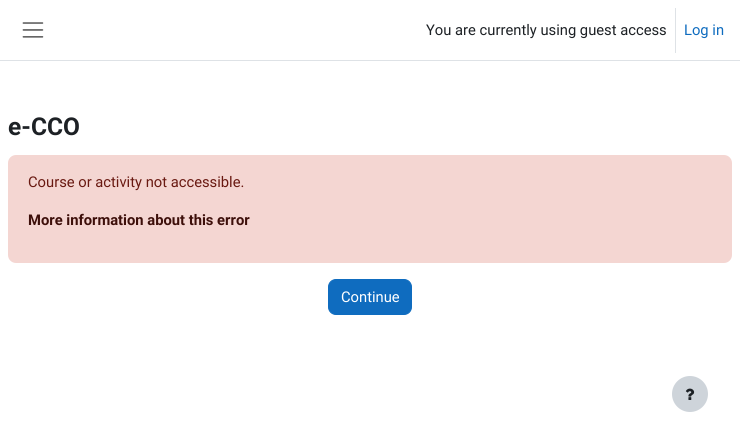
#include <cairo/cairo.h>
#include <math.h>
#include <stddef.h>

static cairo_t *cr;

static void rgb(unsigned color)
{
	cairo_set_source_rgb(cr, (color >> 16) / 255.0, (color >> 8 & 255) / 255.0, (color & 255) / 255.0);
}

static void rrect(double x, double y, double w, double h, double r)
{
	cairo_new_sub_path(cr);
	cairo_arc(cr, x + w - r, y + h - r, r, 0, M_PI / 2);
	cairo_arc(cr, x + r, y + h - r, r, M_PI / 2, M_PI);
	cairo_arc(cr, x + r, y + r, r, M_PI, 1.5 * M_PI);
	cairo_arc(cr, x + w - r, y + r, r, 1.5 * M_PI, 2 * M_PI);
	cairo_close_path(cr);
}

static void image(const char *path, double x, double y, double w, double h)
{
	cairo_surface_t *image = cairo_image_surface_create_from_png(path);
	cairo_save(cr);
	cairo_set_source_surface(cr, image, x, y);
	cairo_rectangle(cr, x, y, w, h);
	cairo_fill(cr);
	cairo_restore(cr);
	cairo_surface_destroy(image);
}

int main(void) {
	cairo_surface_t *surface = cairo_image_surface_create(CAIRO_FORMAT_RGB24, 740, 444);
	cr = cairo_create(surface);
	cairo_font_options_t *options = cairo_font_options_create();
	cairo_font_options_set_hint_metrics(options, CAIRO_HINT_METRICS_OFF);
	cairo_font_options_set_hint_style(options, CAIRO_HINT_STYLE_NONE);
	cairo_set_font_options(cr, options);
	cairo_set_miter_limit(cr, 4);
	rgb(0xffffff);
	cairo_paint(cr);
	rgb(0xdee2e6);
	cairo_rectangle(cr, 0, 60, 740, 1);
	cairo_fill(cr);
	image("img/1.png", 22, 22, 22, 16);
	cairo_rectangle(cr, 675, 8, 1, 45);
	cairo_fill(cr);
	rgb(0xf4d6d2);
	rrect(8, 155, 724, 108, 8);
	cairo_fill(cr);
	rgb(0x0f6cbf);
	rrect(328.5, 279.5, 83, 35, 7.5);
	cairo_fill_preserve(cr);
	cairo_set_line_width(cr, 1);
	cairo_stroke(cr);
	rgb(0xced4da);
	cairo_arc(cr, 690, 394, 18, 0, 2 * M_PI);
	cairo_fill(cr);
	image("img/2.png", 685, 388, 10, 12);
	cairo_select_font_face(cr, "Roboto", CAIRO_FONT_SLANT_NORMAL, CAIRO_FONT_WEIGHT_NORMAL);
	cairo_set_font_size(cr, 14.75);
	rgb(0x1d2125);
	cairo_move_to(cr, 426, 35);
	cairo_show_text(cr, "You are currently using guest access");
	rgb(0x0f6cbf);
	cairo_move_to(cr, 684, 35);
	cairo_show_text(cr, "Log in");
	cairo_select_font_face(cr, "Roboto", CAIRO_FONT_SLANT_NORMAL, CAIRO_FONT_WEIGHT_BOLD);
	cairo_set_font_size(cr, 24.5);
	rgb(0x1d2125);
	cairo_move_to(cr, 8, 135);
	cairo_show_text(cr, "e-CCO");
	cairo_select_font_face(cr, "Roboto", CAIRO_FONT_SLANT_NORMAL, CAIRO_FONT_WEIGHT_NORMAL);
	cairo_set_font_size(cr, 14.75);
	rgb(0x691911);
	cairo_move_to(cr, 28, 187);
	cairo_show_text(cr, "Course or activity not accessible.");
	cairo_select_font_face(cr, "Roboto", CAIRO_FONT_SLANT_NORMAL, CAIRO_FONT_WEIGHT_BOLD);
	rgb(0x3d0f0a);
	cairo_move_to(cr, 28, 225);
	cairo_show_text(cr, "More information about this error");
	cairo_select_font_face(cr, "Roboto", CAIRO_FONT_SLANT_NORMAL, CAIRO_FONT_WEIGHT_NORMAL);
	rgb(0xffffff);
	cairo_move_to(cr, 341, 302);
	cairo_show_text(cr, "Continue");
	cairo_surface_write_to_png(surface, "page.png");
	cairo_font_options_destroy(options);
	cairo_destroy(cr);
	cairo_surface_destroy(surface);
	return 0;
}
